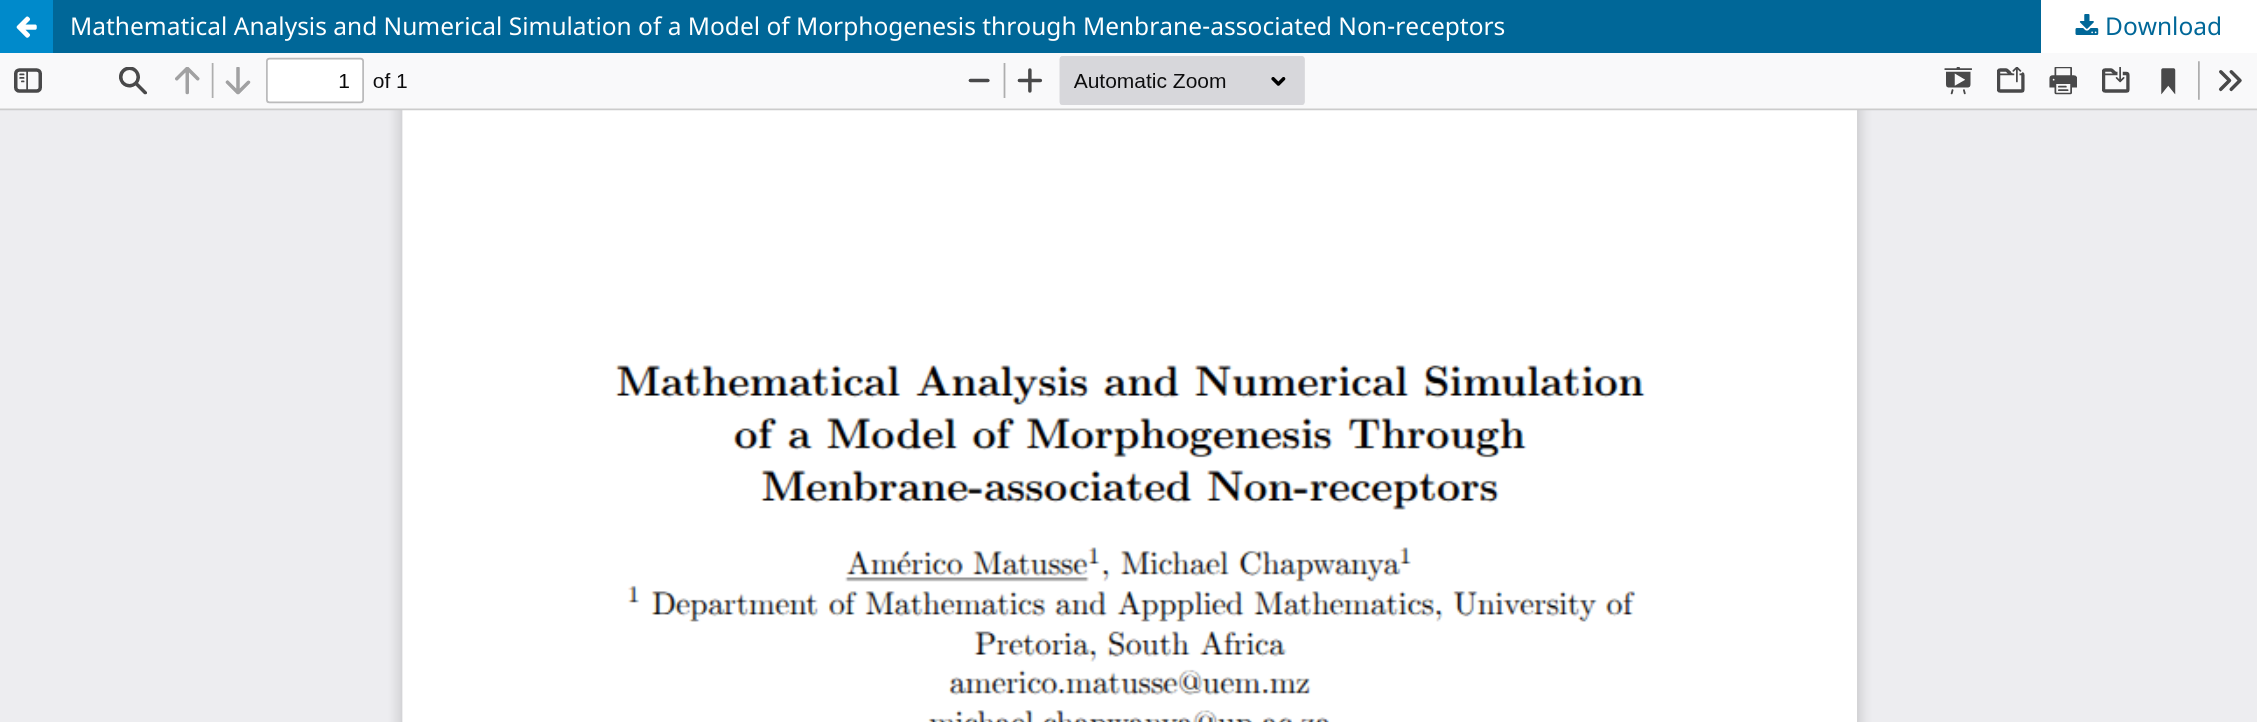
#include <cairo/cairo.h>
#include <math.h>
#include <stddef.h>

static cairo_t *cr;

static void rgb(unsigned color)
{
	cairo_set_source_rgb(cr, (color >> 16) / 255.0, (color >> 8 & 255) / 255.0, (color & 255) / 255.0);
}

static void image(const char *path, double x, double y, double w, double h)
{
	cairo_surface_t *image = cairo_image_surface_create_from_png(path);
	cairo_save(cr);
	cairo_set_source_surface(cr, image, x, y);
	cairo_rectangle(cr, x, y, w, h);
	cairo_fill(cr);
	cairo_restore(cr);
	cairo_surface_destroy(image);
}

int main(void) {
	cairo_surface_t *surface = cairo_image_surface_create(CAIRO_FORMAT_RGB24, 2257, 722);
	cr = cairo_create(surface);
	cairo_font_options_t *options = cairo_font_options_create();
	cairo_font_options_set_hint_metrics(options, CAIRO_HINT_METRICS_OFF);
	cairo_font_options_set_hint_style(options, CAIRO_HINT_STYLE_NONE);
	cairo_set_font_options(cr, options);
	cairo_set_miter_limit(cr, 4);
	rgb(0xffffff);
	cairo_paint(cr);
	rgb(0x006798);
	cairo_rectangle(cr, 53, 0, 1988, 53);
	cairo_fill(cr);
	rgb(0x008acb);
	cairo_rectangle(cr, 0, 0, 53, 53);
	cairo_fill(cr);
	image("img/1.png", 16, 16, 21, 22);
	image("img/2.png", 2075, 14, 24, 21);
	image("img/3.png", 0, 53, 2257, 669);
	cairo_select_font_face(cr, "Noto Sans", CAIRO_FONT_SLANT_NORMAL, CAIRO_FONT_WEIGHT_NORMAL);
	cairo_set_font_size(cr, 24.5);
	rgb(0xffffff);
	cairo_move_to(cr, 70, 35);
	cairo_show_text(cr, "Mathematical Analysis and Numerical Simulation of a Model of Morphogenesis through Menbrane-associated Non-receptors");
	rgb(0x006798);
	cairo_move_to(cr, 2105, 35);
	cairo_show_text(cr, "Download");
	cairo_surface_write_to_png(surface, "page.png");
	cairo_font_options_destroy(options);
	cairo_destroy(cr);
	cairo_surface_destroy(surface);
	return 0;
}
